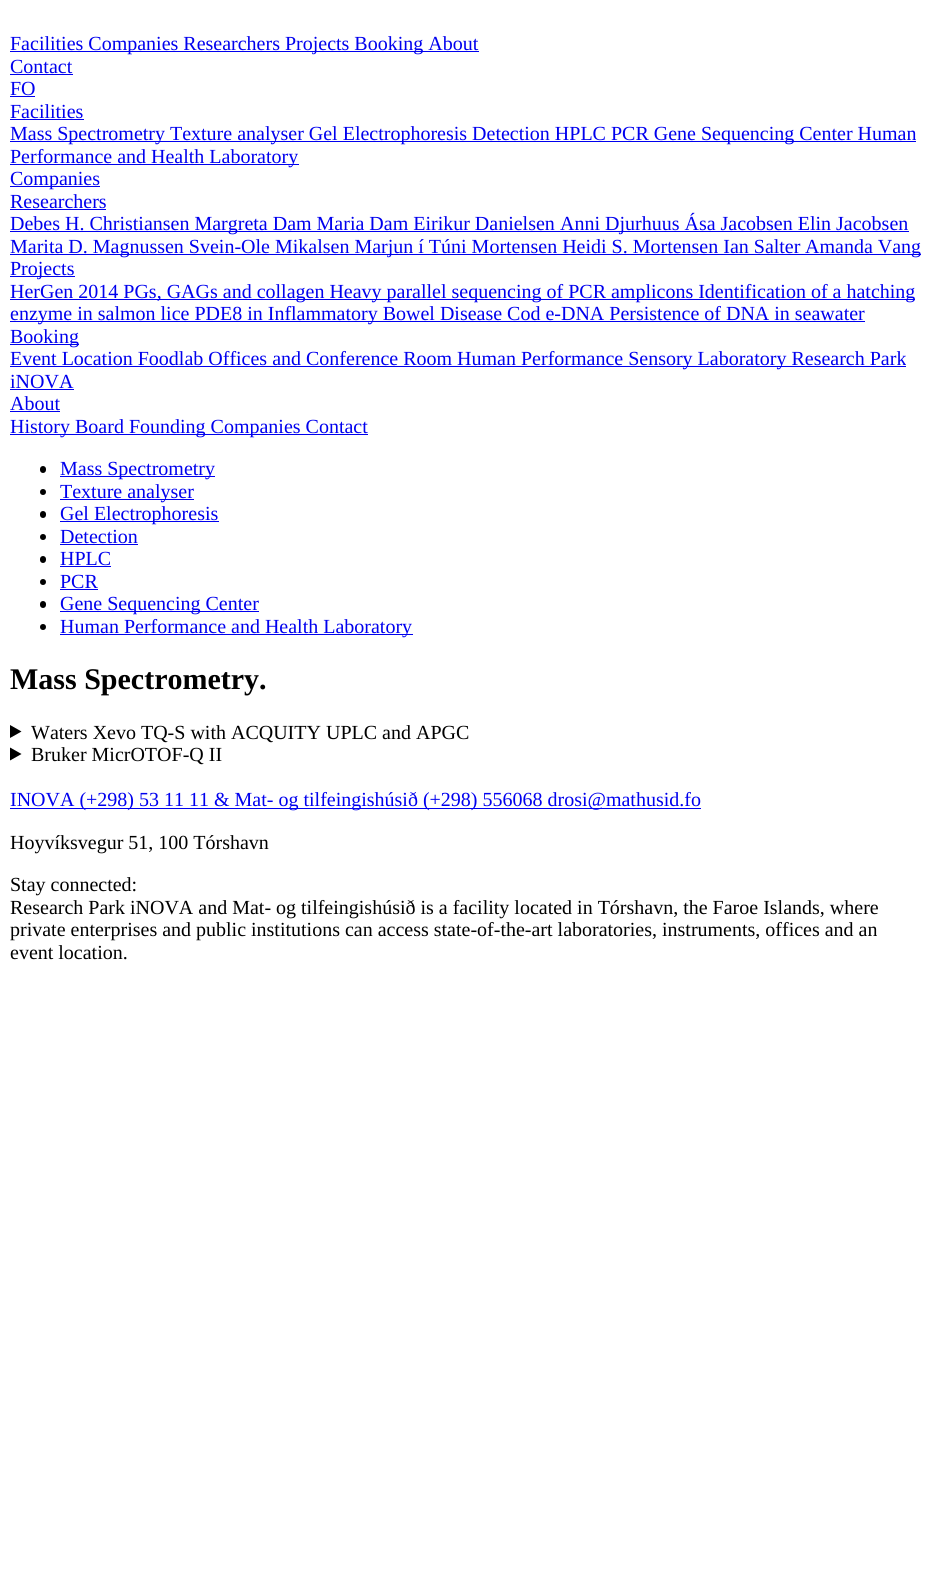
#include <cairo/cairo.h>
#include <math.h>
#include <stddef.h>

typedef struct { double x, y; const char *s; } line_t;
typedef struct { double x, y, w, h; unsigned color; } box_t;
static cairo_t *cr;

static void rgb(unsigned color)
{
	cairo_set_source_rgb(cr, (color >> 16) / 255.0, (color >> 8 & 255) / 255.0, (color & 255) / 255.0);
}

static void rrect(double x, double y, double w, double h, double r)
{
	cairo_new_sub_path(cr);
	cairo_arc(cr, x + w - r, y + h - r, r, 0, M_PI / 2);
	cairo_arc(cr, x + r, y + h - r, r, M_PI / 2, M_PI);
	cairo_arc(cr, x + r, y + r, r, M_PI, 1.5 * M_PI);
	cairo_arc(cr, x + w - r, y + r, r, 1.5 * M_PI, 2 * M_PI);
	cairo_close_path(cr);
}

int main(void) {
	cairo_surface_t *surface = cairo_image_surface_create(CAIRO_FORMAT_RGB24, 935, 1586);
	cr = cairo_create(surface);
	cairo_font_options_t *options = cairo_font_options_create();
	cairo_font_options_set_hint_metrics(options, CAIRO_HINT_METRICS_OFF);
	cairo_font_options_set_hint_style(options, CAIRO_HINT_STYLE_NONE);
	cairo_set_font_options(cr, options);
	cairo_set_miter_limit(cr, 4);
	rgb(0xffffff);
	cairo_paint(cr);
	{
		static const box_t items[] = {
			{10, 51, 469, 1, 0x0000ee},
			{10, 74, 63, 1, 0x0000ee},
			{10, 96, 25, 1, 0x0000ee},
			{10, 119, 74, 1, 0x0000ee},
			{10, 141, 906, 1, 0x0000ee},
			{10, 164, 289, 1, 0x0000ee},
			{10, 186, 90, 1, 0x0000ee},
			{10, 209, 96, 1, 0x0000ee},
			{10, 231, 301, 1, 0x0000ee},
			{311, 231, 598, 1, 0x0000ee},
			{10, 254, 790, 1, 0x0000ee},
			{800, 254, 121, 1, 0x0000ee},
			{10, 276, 65, 1, 0x0000ee},
			{10, 299, 905, 1, 0x0000ee},
			{10, 321, 594, 1, 0x0000ee},
			{604, 321, 261, 1, 0x0000ee},
			{10, 344, 69, 1, 0x0000ee},
			{10, 366, 776, 1, 0x0000ee},
			{786, 366, 120, 1, 0x0000ee},
			{10, 389, 64, 1, 0x0000ee},
			{10, 411, 50, 1, 0x0000ee},
			{10, 434, 358, 1, 0x0000ee},
		};
		for (size_t i = 0; i < sizeof items / sizeof *items; i++) {
			rgb(items[i].color);
			cairo_rectangle(cr, items[i].x, items[i].y, items[i].w, items[i].h);
			cairo_fill(cr);
		}
	}
	rgb(0x000000);
	rrect(40, 466, 6, 7, 3);
	cairo_fill(cr);
	rgb(0x0000ee);
	cairo_rectangle(cr, 60, 476, 155, 1);
	cairo_fill(cr);
	rgb(0x000000);
	cairo_arc(cr, 43, 492, 3, 0, 2 * M_PI);
	cairo_fill(cr);
	rgb(0x0000ee);
	cairo_rectangle(cr, 60, 499, 134, 1);
	cairo_fill(cr);
	rgb(0x000000);
	rrect(40, 511, 6, 7, 3);
	cairo_fill(cr);
	rgb(0x0000ee);
	cairo_rectangle(cr, 60, 521, 159, 1);
	cairo_fill(cr);
	rgb(0x000000);
	cairo_arc(cr, 43, 537, 3, 0, 2 * M_PI);
	cairo_fill(cr);
	rgb(0x0000ee);
	cairo_rectangle(cr, 60, 544, 78, 1);
	cairo_fill(cr);
	rgb(0x000000);
	rrect(40, 556, 6, 7, 3);
	cairo_fill(cr);
	rgb(0x0000ee);
	cairo_rectangle(cr, 60, 566, 51, 1);
	cairo_fill(cr);
	rgb(0x000000);
	cairo_arc(cr, 43, 582, 3, 0, 2 * M_PI);
	cairo_fill(cr);
	rgb(0x0000ee);
	cairo_rectangle(cr, 60, 589, 38, 1);
	cairo_fill(cr);
	rgb(0x000000);
	rrect(40, 601, 6, 7, 3);
	cairo_fill(cr);
	rgb(0x0000ee);
	cairo_rectangle(cr, 60, 611, 199, 1);
	cairo_fill(cr);
	rgb(0x000000);
	cairo_arc(cr, 43, 627, 3, 0, 2 * M_PI);
	cairo_fill(cr);
	rgb(0x0000ee);
	cairo_rectangle(cr, 60, 634, 353, 1);
	cairo_fill(cr);
	rgb(0x000000);
	cairo_new_path(cr);
	cairo_move_to(cr, 10, 725);
	cairo_line_to(cr, 21.5, 731.5);
	cairo_line_to(cr, 10, 738);
	cairo_close_path(cr);
	cairo_fill(cr);
	cairo_new_path(cr);
	cairo_move_to(cr, 10, 747.5);
	cairo_line_to(cr, 21.5, 754);
	cairo_line_to(cr, 10, 760.5);
	cairo_close_path(cr);
	cairo_fill(cr);
	rgb(0x0000ee);
	cairo_rectangle(cr, 10, 808, 691, 1);
	cairo_fill(cr);
	cairo_select_font_face(cr, "Liberation Serif", CAIRO_FONT_SLANT_NORMAL, CAIRO_FONT_WEIGHT_NORMAL);
	cairo_set_font_size(cr, 20);
	{
		static const line_t items[] = {
			{10, 50, "Facilities Companies Researchers Projects Booking About"},
			{10, 73, "Contact"},
			{10, 95, "FO"},
			{10, 118, "Facilities"},
			{10, 140, "Mass Spectrometry Texture analyser Gel Electrophoresis Detection HPLC PCR Gene Sequencing Center Human"},
			{10, 163, "Performance and Health Laboratory"},
			{10, 185, "Companies"},
			{10, 208, "Researchers"},
			{10, 230, "Debes H. Christiansen Margreta Dam Maria Dam Eirikur Danielsen"},
			{560, 230, "Anni Djurhuus Ása Jacobsen Elin Jacobsen"},
			{10, 253, "Marita D. Magnussen Svein-Ole Mikalsen Marjun í Túni Mortensen Heidi S. Mortensen Ian Salter"},
			{805, 253, "Amanda Vang"},
			{10, 275, "Projects"},
			{10, 298, "HerGen 2014 PGs, GAGs and collagen Heavy parallel sequencing of PCR amplicons Identification of a hatching"},
			{10, 320, "enzyme in salmon lice PDE8 in Inflammatory Bowel Disease Cod e-DNA Persistence of DNA in seawater"},
			{10, 343, "Booking"},
			{10, 365, "Event Location Foodlab Offices and Conference Room Human Performance Sensory Laboratory Research Park"},
			{10, 388, "iNOVA"},
			{10, 410, "About"},
			{10, 433, "History Board Founding Companies Contact"},
			{60, 475, "Mass Spectrometry"},
			{60, 498, "Texture analyser"},
			{60, 520, "Gel Electrophoresis"},
			{60, 543, "Detection"},
			{60, 565, "HPLC"},
			{60, 588, "PCR"},
			{60, 610, "Gene Sequencing Center"},
			{60, 633, "Human Performance and Health Laboratory"},
		};
		for (size_t i = 0; i < sizeof items / sizeof *items; i++) {
			cairo_move_to(cr, items[i].x, items[i].y);
			cairo_show_text(cr, items[i].s);
		}
	}
	cairo_select_font_face(cr, "Liberation Serif", CAIRO_FONT_SLANT_NORMAL, CAIRO_FONT_WEIGHT_BOLD);
	cairo_set_font_size(cr, 30);
	rgb(0x000000);
	cairo_move_to(cr, 10, 689);
	cairo_show_text(cr, "Mass Spectrometry.");
	cairo_select_font_face(cr, "Liberation Serif", CAIRO_FONT_SLANT_NORMAL, CAIRO_FONT_WEIGHT_NORMAL);
	cairo_set_font_size(cr, 20);
	cairo_move_to(cr, 31, 739);
	cairo_show_text(cr, "Waters Xevo TQ-S with ACQUITY UPLC and APGC");
	cairo_move_to(cr, 31, 761);
	cairo_show_text(cr, "Bruker MicrOTOF-Q II");
	rgb(0x0000ee);
	cairo_move_to(cr, 10, 806);
	cairo_show_text(cr, "INOVA (+298) 53 11 11 & Mat- og tilfeingishúsið (+298) 556068 drosi@mathusid.fo");
	rgb(0x000000);
	{
		static const line_t items[] = {
			{10, 849, "Hoyvíksvegur 51, 100 Tórshavn"},
			{10, 891, "Stay connected:"},
			{10, 914, "Research Park iNOVA and Mat- og tilfeingishúsið is a facility located in Tórshavn, the Faroe Islands, where"},
			{10, 936, "private enterprises and public institutions can access state-of-the-art laboratories, instruments, offices and an"},
			{10, 959, "event location."},
		};
		for (size_t i = 0; i < sizeof items / sizeof *items; i++) {
			cairo_move_to(cr, items[i].x, items[i].y);
			cairo_show_text(cr, items[i].s);
		}
	}
	cairo_surface_write_to_png(surface, "page.png");
	cairo_font_options_destroy(options);
	cairo_destroy(cr);
	cairo_surface_destroy(surface);
	return 0;
}
